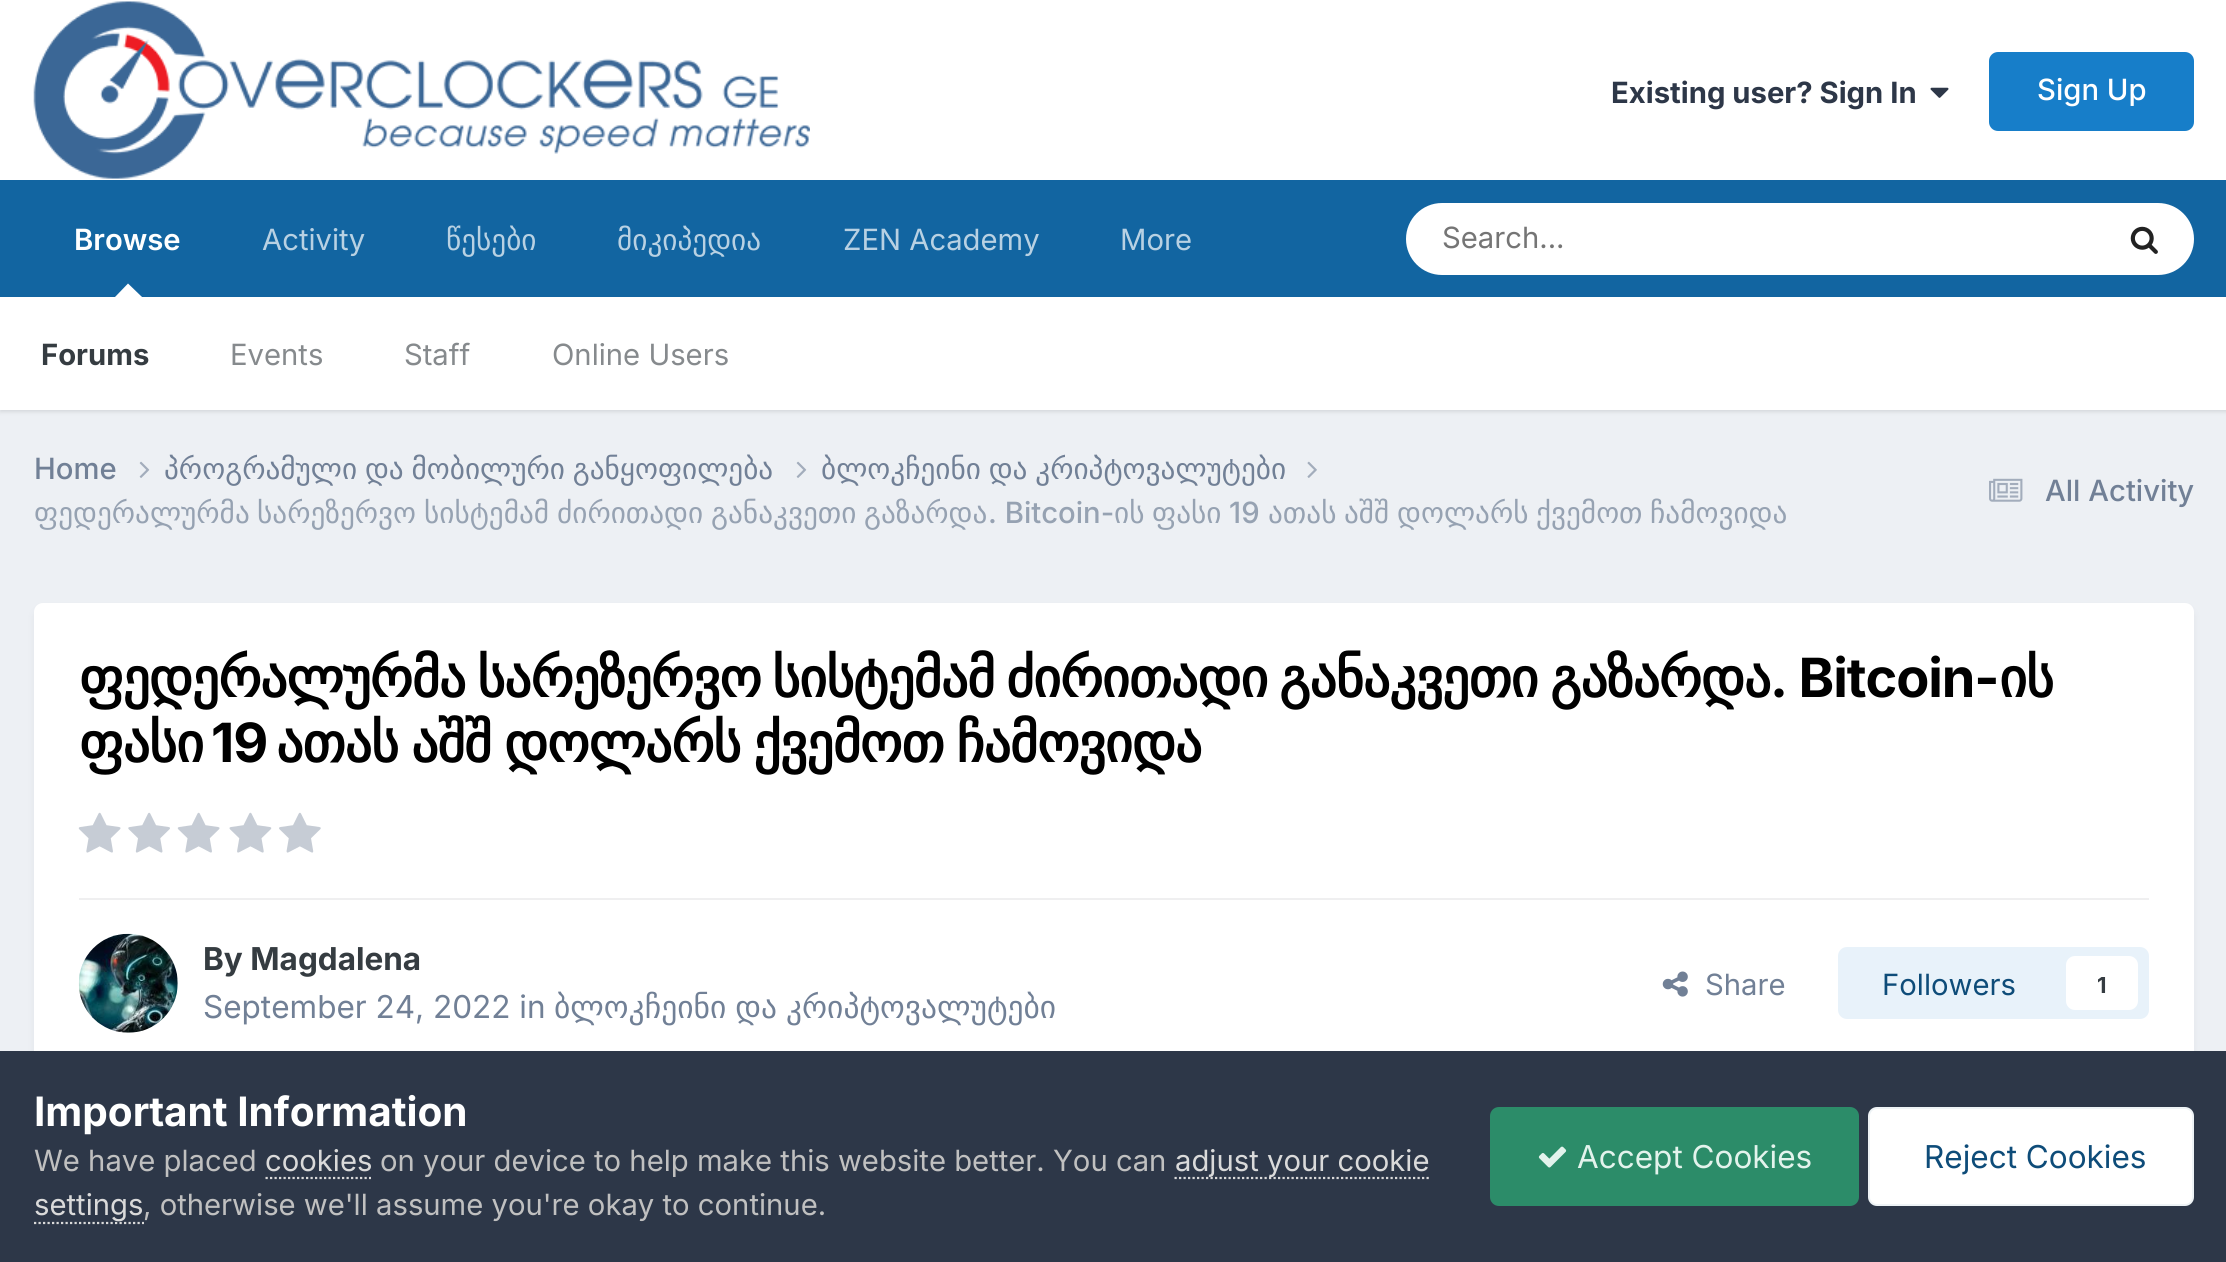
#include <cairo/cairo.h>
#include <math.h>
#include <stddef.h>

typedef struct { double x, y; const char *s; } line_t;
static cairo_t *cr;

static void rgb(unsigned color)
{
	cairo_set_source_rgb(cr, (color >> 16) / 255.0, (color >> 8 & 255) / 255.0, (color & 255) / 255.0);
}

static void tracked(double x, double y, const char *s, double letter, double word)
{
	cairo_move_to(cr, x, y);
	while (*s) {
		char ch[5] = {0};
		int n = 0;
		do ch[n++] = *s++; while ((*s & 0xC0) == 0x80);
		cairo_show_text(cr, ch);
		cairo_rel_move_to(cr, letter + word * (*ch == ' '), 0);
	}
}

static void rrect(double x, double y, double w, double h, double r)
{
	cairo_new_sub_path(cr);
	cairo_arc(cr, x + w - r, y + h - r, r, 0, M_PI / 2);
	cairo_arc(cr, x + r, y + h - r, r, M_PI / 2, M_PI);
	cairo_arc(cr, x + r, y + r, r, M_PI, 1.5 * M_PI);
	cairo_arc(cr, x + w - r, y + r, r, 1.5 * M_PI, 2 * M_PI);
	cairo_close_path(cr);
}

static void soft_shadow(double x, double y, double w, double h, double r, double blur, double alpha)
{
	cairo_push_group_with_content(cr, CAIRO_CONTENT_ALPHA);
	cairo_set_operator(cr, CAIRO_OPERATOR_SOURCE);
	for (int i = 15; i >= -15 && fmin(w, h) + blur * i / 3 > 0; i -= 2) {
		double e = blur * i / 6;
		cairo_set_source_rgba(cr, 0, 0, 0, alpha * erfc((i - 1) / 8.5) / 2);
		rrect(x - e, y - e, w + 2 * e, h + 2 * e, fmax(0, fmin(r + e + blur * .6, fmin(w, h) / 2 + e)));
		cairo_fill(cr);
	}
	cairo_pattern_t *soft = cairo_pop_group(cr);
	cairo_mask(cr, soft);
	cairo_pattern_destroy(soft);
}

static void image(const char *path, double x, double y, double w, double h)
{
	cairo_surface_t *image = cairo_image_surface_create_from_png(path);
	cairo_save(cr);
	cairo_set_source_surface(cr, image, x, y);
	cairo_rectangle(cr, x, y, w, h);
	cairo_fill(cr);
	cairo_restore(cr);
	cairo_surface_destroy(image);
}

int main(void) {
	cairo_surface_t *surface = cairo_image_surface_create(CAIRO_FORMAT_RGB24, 2226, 1262);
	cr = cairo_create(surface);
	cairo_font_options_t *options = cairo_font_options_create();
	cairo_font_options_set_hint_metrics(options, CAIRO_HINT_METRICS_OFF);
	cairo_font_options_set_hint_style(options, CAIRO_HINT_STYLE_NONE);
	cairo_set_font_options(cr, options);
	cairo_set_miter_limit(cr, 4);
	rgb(0xedf0f4);
	cairo_paint(cr);
	rgb(0xffffff);
	cairo_rectangle(cr, 0, 0, 2226, 180);
	cairo_fill(cr);
	image("img/1.png", 33, 1, 777, 178);
	image("img/2.png", 1930, 87, 19, 11);
	rgb(0x177ec9);
	rrect(1989, 52, 205, 79, 9);
	cairo_fill(cr);
	rgb(0x1265a1);
	cairo_rectangle(cr, 0, 180, 2226, 117);
	cairo_fill(cr);
	rgb(0x000000);
	soft_shadow(0, 299, 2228, 113, 0, 2, 0.1);
	rgb(0xffffff);
	cairo_new_path(cr);
	cairo_move_to(cr, 142, 297);
	cairo_line_to(cr, 115, 297);
	cairo_line_to(cr, 128, 283.5);
	cairo_close_path(cr);
	cairo_fill(cr);
	rrect(1406, 203, 788, 72, 36);
	cairo_fill(cr);
	image("img/3.png", 2130, 226, 28, 28);
	cairo_rectangle(cr, 0, 297, 2226, 113);
	cairo_fill(cr);
	image("img/4.png", 139, 461, 11, 17);
	image("img/4.png", 796, 461, 11, 17);
	image("img/5.png", 1307, 461, 10, 17);
	image("img/6.png", 1989, 478, 34, 24);
	rgb(0x2d3748);
	soft_shadow(36, 610, 2156, 470, 7, 4.5, 0.1);
	rgb(0xffffff);
	rrect(34, 603, 2160, 475, 9);
	cairo_fill(cr);
	image("img/7.png", 78, 812, 43, 41);
	image("img/8.png", 128, 812, 42, 41);
	image("img/7.png", 177, 812, 43, 41);
	image("img/9.png", 229, 812, 43, 41);
	image("img/10.png", 279, 812, 42, 41);
	rgb(0xefeff0);
	cairo_rectangle(cr, 79, 898, 2070, 2);
	cairo_fill(cr);
	image("img/11.png", 78, 933, 100, 100);
	image("img/12.png", 1662, 971, 26, 26);
	rgb(0xe8f2fa);
	rrect(1838, 947, 311, 72, 9);
	cairo_fill(cr);
	rgb(0xffffff);
	rrect(2066, 956, 72, 54, 9);
	cairo_fill(cr);
	rgb(0x2d3748);
	cairo_rectangle(cr, 0, 1051, 2226, 211);
	cairo_fill(cr);
	cairo_new_path(cr);
	cairo_move_to(cr, 265.5, 1178);
	cairo_line_to(cr, 371, 1178);
	rgb(0xdadada);
	cairo_set_line_width(cr, 2.2);
	cairo_set_dash(cr, (double[]){2.25, 2.25}, 2, 0);
	cairo_stroke(cr);
	cairo_new_path(cr);
	cairo_move_to(cr, 1174.5, 1178);
	cairo_line_to(cr, 1429, 1178);
	cairo_stroke(cr);
	cairo_new_path(cr);
	cairo_move_to(cr, 34, 1223);
	cairo_line_to(cr, 144, 1223);
	cairo_stroke(cr);
	rgb(0x2c8c69);
	rrect(1490, 1107, 369, 99, 9);
	cairo_fill(cr);
	image("img/13.png", 1538, 1146, 29, 22);
	rgb(0xffffff);
	rrect(1868, 1107, 326, 99, 9);
	cairo_fill(cr);
	rrect(1869, 1108, 324, 97, 8);
	cairo_set_source_rgba(cr, 0.055, 0.298, 0.475, 0.07);
	cairo_set_line_width(cr, 2);
	cairo_set_dash(cr, NULL, 0, 0);
	cairo_stroke(cr);
	cairo_select_font_face(cr, "Inter", CAIRO_FONT_SLANT_NORMAL, CAIRO_FONT_WEIGHT_BOLD);
	cairo_set_font_size(cr, 29.25);
	rgb(0x2d3748);
	cairo_move_to(cr, 1611, 103);
	cairo_show_text(cr, "Existing user? Sign In");
	cairo_select_font_face(cr, "Inter Medium", CAIRO_FONT_SLANT_NORMAL, CAIRO_FONT_WEIGHT_NORMAL);
	rgb(0xffffff);
	cairo_move_to(cr, 2037, 100);
	cairo_show_text(cr, "Sign Up");
	cairo_select_font_face(cr, "DejaVu Sans", CAIRO_FONT_SLANT_NORMAL, CAIRO_FONT_WEIGHT_NORMAL);
	rgb(0xb8d1e3);
	cairo_move_to(cr, 446, 250);
	cairo_show_text(cr, "წესები");
	cairo_move_to(cr, 617, 250);
	cairo_show_text(cr, "მიკიპედია");
	cairo_select_font_face(cr, "Inter SemiBold", CAIRO_FONT_SLANT_NORMAL, CAIRO_FONT_WEIGHT_NORMAL);
	rgb(0xffffff);
	cairo_move_to(cr, 74, 250);
	cairo_show_text(cr, "Browse");
	cairo_select_font_face(cr, "Inter", CAIRO_FONT_SLANT_NORMAL, CAIRO_FONT_WEIGHT_BOLD);
	rgb(0x353c41);
	cairo_move_to(cr, 41, 365);
	cairo_show_text(cr, "Forums");
	cairo_select_font_face(cr, "Inter", CAIRO_FONT_SLANT_NORMAL, CAIRO_FONT_WEIGHT_NORMAL);
	rgb(0x868a8d);
	{
		static const line_t items[] = {
			{230, 365, "Events"},
			{404, 365, "Staff"},
			{552, 365, "Online Users"},
		};
		for (size_t i = 0; i < sizeof items / sizeof *items; i++) {
			cairo_move_to(cr, items[i].x, items[i].y);
			cairo_show_text(cr, items[i].s);
		}
	}
	rgb(0xb8d1e3);
	{
		static const line_t items[] = {
			{262, 250, "Activity"},
			{843, 250, "ZEN Academy"},
			{1120, 250, "More"},
		};
		for (size_t i = 0; i < sizeof items / sizeof *items; i++) {
			cairo_move_to(cr, items[i].x, items[i].y);
			cairo_show_text(cr, items[i].s);
		}
	}
	rgb(0x757575);
	cairo_move_to(cr, 1442, 248);
	cairo_show_text(cr, "Search...");
	cairo_select_font_face(cr, "Inter Medium", CAIRO_FONT_SLANT_NORMAL, CAIRO_FONT_WEIGHT_NORMAL);
	rgb(0x718096);
	cairo_move_to(cr, 34, 479);
	cairo_show_text(cr, "Home");
	cairo_select_font_face(cr, "DejaVu Sans", CAIRO_FONT_SLANT_NORMAL, CAIRO_FONT_WEIGHT_NORMAL);
	tracked(164, 479, "პროგრამული და მობილური განყოფილება", 0, -1.5);
	tracked(821, 479, "ბლოკჩეინი და კრიპტოვალუტები", 0, -1.5);
	rgb(0x96a2b2);
	{
		static const line_t items[] = {
			{34, 523, "ფედერალურმა"},
			{257, 523, "სარეზერვო"},
			{424, 523, "სისტემამ"},
			{557, 523, "ძირითადი"},
			{711, 523, "განაკვეთი"},
			{864, 523, "გაზარდა"},
		};
		for (size_t i = 0; i < sizeof items / sizeof *items; i++) {
			cairo_move_to(cr, items[i].x, items[i].y);
			cairo_show_text(cr, items[i].s);
		}
	}
	cairo_select_font_face(cr, "Inter Medium", CAIRO_FONT_SLANT_NORMAL, CAIRO_FONT_WEIGHT_NORMAL);
	cairo_move_to(cr, 988, 523);
	cairo_show_text(cr, ". Bitcoin-");
	cairo_select_font_face(cr, "DejaVu Sans", CAIRO_FONT_SLANT_NORMAL, CAIRO_FONT_WEIGHT_NORMAL);
	cairo_move_to(cr, 1114, 523);
	cairo_show_text(cr, "ის");
	cairo_move_to(cr, 1152, 523);
	cairo_show_text(cr, "ფასი");
	cairo_select_font_face(cr, "Inter Medium", CAIRO_FONT_SLANT_NORMAL, CAIRO_FONT_WEIGHT_NORMAL);
	cairo_move_to(cr, 1229, 523);
	cairo_show_text(cr, "19");
	cairo_select_font_face(cr, "DejaVu Sans", CAIRO_FONT_SLANT_NORMAL, CAIRO_FONT_WEIGHT_NORMAL);
	{
		static const line_t items[] = {
			{1268, 523, "ათას"},
			{1344, 523, "აშშ"},
			{1397, 523, "დოლარს"},
			{1536, 523, "ქვემოთ"},
			{1650, 523, "ჩამოვიდა"},
		};
		for (size_t i = 0; i < sizeof items / sizeof *items; i++) {
			cairo_move_to(cr, items[i].x, items[i].y);
			cairo_show_text(cr, items[i].s);
		}
	}
	cairo_select_font_face(cr, "Inter Medium", CAIRO_FONT_SLANT_NORMAL, CAIRO_FONT_WEIGHT_NORMAL);
	rgb(0x718096);
	cairo_move_to(cr, 2045, 501);
	cairo_show_text(cr, "All Activity");
	cairo_select_font_face(cr, "DejaVu Sans", CAIRO_FONT_SLANT_NORMAL, CAIRO_FONT_WEIGHT_BOLD);
	cairo_set_font_size(cr, 54);
	rgb(0x000000);
	{
		static const line_t items[] = {
			{79, 697, "ფედერალურმა"},
			{477, 697, "სარეზერვო"},
			{772, 697, "სისტემამ"},
			{1006, 697, "ძირითადი"},
			{1279, 697, "განაკვეთი"},
			{1550, 697, "გაზარდა"},
		};
		for (size_t i = 0; i < sizeof items / sizeof *items; i++) {
			tracked(items[i].x, items[i].y, items[i].s, -1.1, 0);
		}
	}
	cairo_select_font_face(cr, "Inter", CAIRO_FONT_SLANT_NORMAL, CAIRO_FONT_WEIGHT_BOLD);
	tracked(1770, 697, ". Bitcoin-", -1.1, 0);
	cairo_select_font_face(cr, "DejaVu Sans", CAIRO_FONT_SLANT_NORMAL, CAIRO_FONT_WEIGHT_BOLD);
	tracked(1999, 697, "ის", -1.1, 0);
	tracked(79, 762, "ფასი", -1.1, 0);
	cairo_select_font_face(cr, "Inter", CAIRO_FONT_SLANT_NORMAL, CAIRO_FONT_WEIGHT_BOLD);
	tracked(211, 762, "19", -1.1, 0);
	cairo_select_font_face(cr, "DejaVu Sans", CAIRO_FONT_SLANT_NORMAL, CAIRO_FONT_WEIGHT_BOLD);
	tracked(276, 762, "ათას აშშ დოლარს ქვემოთ ჩამოვიდა", -1.1, -3);
	cairo_select_font_face(cr, "Inter", CAIRO_FONT_SLANT_NORMAL, CAIRO_FONT_WEIGHT_BOLD);
	cairo_set_font_size(cr, 31.5);
	rgb(0x353c41);
	cairo_move_to(cr, 203, 970);
	cairo_show_text(cr, "By Magdalena");
	cairo_select_font_face(cr, "Inter", CAIRO_FONT_SLANT_NORMAL, CAIRO_FONT_WEIGHT_NORMAL);
	rgb(0x718096);
	cairo_move_to(cr, 203, 1018);
	cairo_show_text(cr, "September 24, 2022 in");
	cairo_select_font_face(cr, "DejaVu Sans", CAIRO_FONT_SLANT_NORMAL, CAIRO_FONT_WEIGHT_NORMAL);
	tracked(554, 1018, "ბლოკჩეინი და კრიპტოვალუტები", 0, -1);
	cairo_select_font_face(cr, "Inter", CAIRO_FONT_SLANT_NORMAL, CAIRO_FONT_WEIGHT_NORMAL);
	cairo_set_font_size(cr, 29.25);
	cairo_move_to(cr, 1705, 995);
	cairo_show_text(cr, "Share");
	rgb(0x0e4c79);
	cairo_move_to(cr, 1882, 995);
	cairo_show_text(cr, "Followers");
	cairo_select_font_face(cr, "Inter", CAIRO_FONT_SLANT_NORMAL, CAIRO_FONT_WEIGHT_BOLD);
	cairo_set_font_size(cr, 22);
	rgb(0x353c41);
	cairo_move_to(cr, 2097, 993);
	cairo_show_text(cr, "1");
	cairo_set_font_size(cr, 40.5);
	rgb(0xffffff);
	cairo_move_to(cr, 34, 1126);
	cairo_show_text(cr, "Important Information");
	cairo_select_font_face(cr, "Inter", CAIRO_FONT_SLANT_NORMAL, CAIRO_FONT_WEIGHT_NORMAL);
	cairo_set_font_size(cr, 29.25);
	rgb(0xc0c0c0);
	cairo_move_to(cr, 34, 1171);
	cairo_show_text(cr, "We have placed");
	rgb(0xdadada);
	cairo_move_to(cr, 265, 1171);
	cairo_show_text(cr, "cookies");
	rgb(0xc0c0c0);
	cairo_move_to(cr, 380, 1171);
	cairo_show_text(cr, "on your device to help make this website better. You can");
	rgb(0xdadada);
	cairo_move_to(cr, 1175, 1171);
	cairo_show_text(cr, "adjust your cookie");
	cairo_move_to(cr, 34, 1215);
	cairo_show_text(cr, "settings");
	rgb(0xc0c0c0);
	cairo_move_to(cr, 143, 1215);
	cairo_show_text(cr, ", otherwise we'll assume you're okay to continue.");
	cairo_set_font_size(cr, 31.5);
	rgb(0xe3f3ec);
	cairo_move_to(cr, 1577, 1168);
	cairo_show_text(cr, "Accept Cookies");
	rgb(0x0e4c79);
	cairo_move_to(cr, 1924, 1168);
	cairo_show_text(cr, "Reject Cookies");
	cairo_surface_write_to_png(surface, "page.png");
	cairo_font_options_destroy(options);
	cairo_destroy(cr);
	cairo_surface_destroy(surface);
	return 0;
}
